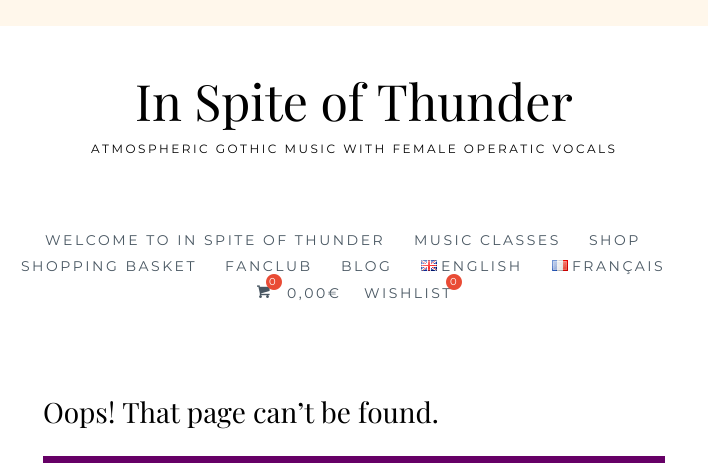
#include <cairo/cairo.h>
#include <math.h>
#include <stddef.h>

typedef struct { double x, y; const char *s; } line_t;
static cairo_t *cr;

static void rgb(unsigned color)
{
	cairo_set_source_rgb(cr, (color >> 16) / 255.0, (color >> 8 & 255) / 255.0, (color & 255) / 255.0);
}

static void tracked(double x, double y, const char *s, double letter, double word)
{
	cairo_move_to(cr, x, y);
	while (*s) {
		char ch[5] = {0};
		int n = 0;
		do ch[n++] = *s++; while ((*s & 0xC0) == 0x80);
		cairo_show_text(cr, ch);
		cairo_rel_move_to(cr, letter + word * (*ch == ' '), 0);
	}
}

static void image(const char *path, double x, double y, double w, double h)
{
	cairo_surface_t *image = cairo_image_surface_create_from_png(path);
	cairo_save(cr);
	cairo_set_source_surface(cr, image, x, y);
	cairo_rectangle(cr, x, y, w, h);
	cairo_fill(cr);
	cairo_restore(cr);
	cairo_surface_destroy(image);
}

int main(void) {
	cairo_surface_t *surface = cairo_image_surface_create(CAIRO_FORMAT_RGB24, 708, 476);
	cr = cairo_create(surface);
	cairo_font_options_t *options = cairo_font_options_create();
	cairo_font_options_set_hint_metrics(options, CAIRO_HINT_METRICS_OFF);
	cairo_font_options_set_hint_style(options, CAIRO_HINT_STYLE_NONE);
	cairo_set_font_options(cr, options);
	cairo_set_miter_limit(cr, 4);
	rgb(0xffffff);
	cairo_paint(cr);
	rgb(0xfff7eb);
	cairo_rectangle(cr, 0, 0, 708, 26);
	cairo_fill(cr);
	image("img/1.png", 421, 260, 16, 11);
	image("img/2.png", 552, 260, 16, 11);
	image("img/3.png", 257, 285, 13, 13);
	rgb(0xe94b35);
	cairo_arc(cr, 274, 282, 8, 0, 2 * M_PI);
	cairo_fill(cr);
	rgb(0x660066);
	cairo_rectangle(cr, 43, 456, 622, 7);
	cairo_fill(cr);
	cairo_select_font_face(cr, "Playfair Display", CAIRO_FONT_SLANT_NORMAL, CAIRO_FONT_WEIGHT_NORMAL);
	cairo_set_font_size(cr, 50);
	rgb(0x000000);
	cairo_move_to(cr, 135, 121);
	cairo_show_text(cr, "In Spite of Thunder");
	cairo_select_font_face(cr, "Montserrat", CAIRO_FONT_SLANT_NORMAL, CAIRO_FONT_WEIGHT_NORMAL);
	cairo_set_font_size(cr, 12);
	tracked(91, 153, "ATMOSPHERIC GOTHIC MUSIC WITH FEMALE OPERATIC VOCALS", 2.5, 0);
	cairo_set_font_size(cr, 14);
	rgb(0x495762);
	{
		static const line_t items[] = {
			{45, 245, "WELCOME TO IN SPITE OF THUNDER"},
			{414, 245, "MUSIC CLASSES"},
			{589, 245, "SHOP"},
			{21, 271, "SHOPPING BASKET"},
			{225, 271, "FANCLUB"},
			{341, 271, "BLOG"},
			{441, 271, "ENGLISH"},
			{572, 271, "FRANÇAIS"},
		};
		for (size_t i = 0; i < sizeof items / sizeof *items; i++) {
			tracked(items[i].x, items[i].y, items[i].s, 2.5, 0);
		}
	}
	cairo_set_font_size(cr, 10);
	rgb(0xffffff);
	tracked(269, 285, "0", 2.5, 0);
	cairo_set_font_size(cr, 14);
	rgb(0x495762);
	tracked(287, 298, "0,00€", 2.5, 0);
	tracked(364, 298, "WISHLIST", 2.5, 0);
	rgb(0xe94b35);
	cairo_new_path(cr);
	cairo_arc(cr, 454, 282, 8, 0, 2 * M_PI);
	cairo_fill(cr);
	cairo_set_font_size(cr, 10);
	rgb(0xffffff);
	tracked(450, 285, "0", 2.5, 0);
	cairo_select_font_face(cr, "Playfair Display", CAIRO_FONT_SLANT_NORMAL, CAIRO_FONT_WEIGHT_NORMAL);
	cairo_set_font_size(cr, 28);
	rgb(0x000000);
	cairo_move_to(cr, 43, 423);
	cairo_show_text(cr, "Oops! That page can’t be found.");
	cairo_surface_write_to_png(surface, "page.png");
	cairo_font_options_destroy(options);
	cairo_destroy(cr);
	cairo_surface_destroy(surface);
	return 0;
}
